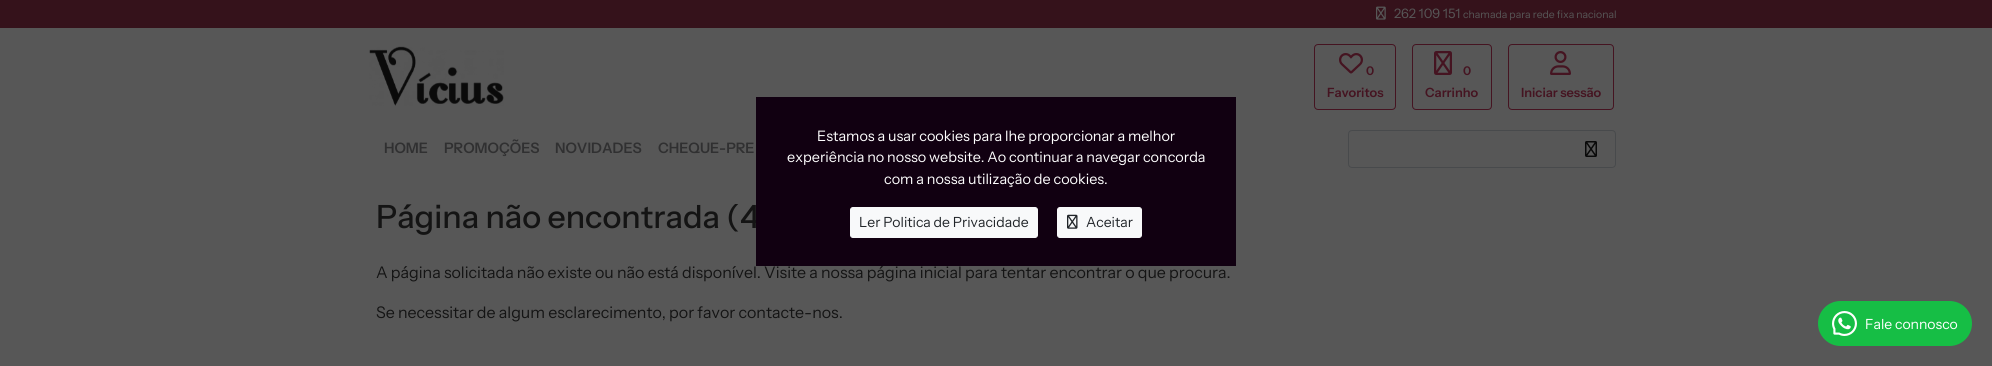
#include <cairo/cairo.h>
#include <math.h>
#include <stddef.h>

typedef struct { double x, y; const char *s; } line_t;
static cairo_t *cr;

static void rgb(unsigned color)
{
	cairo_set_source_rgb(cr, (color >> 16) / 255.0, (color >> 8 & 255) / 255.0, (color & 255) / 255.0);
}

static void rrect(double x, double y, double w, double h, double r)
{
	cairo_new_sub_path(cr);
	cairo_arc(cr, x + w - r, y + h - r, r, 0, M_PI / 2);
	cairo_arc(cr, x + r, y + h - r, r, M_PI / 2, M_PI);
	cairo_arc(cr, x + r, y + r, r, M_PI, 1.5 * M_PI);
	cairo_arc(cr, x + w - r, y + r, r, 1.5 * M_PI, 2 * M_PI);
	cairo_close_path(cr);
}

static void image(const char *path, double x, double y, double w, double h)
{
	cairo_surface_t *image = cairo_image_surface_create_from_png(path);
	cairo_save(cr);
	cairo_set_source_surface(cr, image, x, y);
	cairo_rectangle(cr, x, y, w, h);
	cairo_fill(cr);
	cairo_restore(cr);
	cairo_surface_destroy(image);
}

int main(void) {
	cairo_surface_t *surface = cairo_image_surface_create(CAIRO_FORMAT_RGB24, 1992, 366);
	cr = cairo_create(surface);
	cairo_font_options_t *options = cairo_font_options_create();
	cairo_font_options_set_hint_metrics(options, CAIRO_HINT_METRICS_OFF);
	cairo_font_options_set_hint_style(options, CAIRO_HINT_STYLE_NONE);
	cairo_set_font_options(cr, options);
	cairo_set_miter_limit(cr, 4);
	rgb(0x575757);
	cairo_paint(cr);
	rgb(0x35121b);
	cairo_rectangle(cr, 0, 0, 1992, 28);
	cairo_fill(cr);
	image("img/1.png", 1376, 6, 10, 14);
	image("img/2.png", 369, 46, 135, 60);
	rrect(1314.5, 44.5, 81, 65, 3.5);
	rgb(0x451421);
	cairo_set_line_width(cr, 1);
	cairo_stroke(cr);
	image("img/3.png", 1339, 53, 24, 21);
	rrect(1412.5, 44.5, 79, 65, 3.5);
	cairo_stroke(cr);
	image("img/4.png", 1434, 51, 18, 24);
	rrect(1508.5, 44.5, 105, 65, 3.5);
	cairo_stroke(cr);
	image("img/5.png", 1550, 51, 21, 24);
	rrect(1348.5, 130.5, 267, 37, 3.5);
	rgb(0x484a4c);
	cairo_stroke(cr);
	image("img/6.png", 1585, 141, 12, 16);
	rgb(0x16be45);
	rrect(1818, 301, 154, 45, 22.5);
	cairo_fill(cr);
	image("img/8.png", 1832, 311, 25, 25);
	cairo_select_font_face(cr, "Instrument Sans", CAIRO_FONT_SLANT_NORMAL, CAIRO_FONT_WEIGHT_NORMAL);
	cairo_set_font_size(cr, 13);
	rgb(0x575757);
	cairo_move_to(cr, 1394, 18);
	cairo_show_text(cr, "262 109 151");
	cairo_set_font_size(cr, 10.4);
	cairo_move_to(cr, 1463, 18);
	cairo_show_text(cr, "chamada para rede fixa nacional");
	cairo_select_font_face(cr, "Instrument Sans SemiBold", CAIRO_FONT_SLANT_NORMAL, CAIRO_FONT_WEIGHT_NORMAL);
	cairo_set_font_size(cr, 12);
	rgb(0x451421);
	cairo_move_to(cr, 1366, 75);
	cairo_show_text(cr, "0");
	cairo_set_font_size(cr, 12.75);
	cairo_move_to(cr, 1327, 97);
	cairo_show_text(cr, "Favoritos");
	cairo_set_font_size(cr, 12);
	cairo_move_to(cr, 1463, 75);
	cairo_show_text(cr, "0");
	cairo_set_font_size(cr, 12.75);
	cairo_move_to(cr, 1425, 97);
	cairo_show_text(cr, "Carrinho");
	cairo_move_to(cr, 1521, 97);
	cairo_show_text(cr, "Iniciar sessão");
	cairo_set_font_size(cr, 14.4);
	rgb(0x303031);
	{
		static const line_t items[] = {
			{384, 153, "HOME"},
			{444, 153, "PROMOÇÕES"},
			{555, 153, "NOVIDADES"},
			{658, 153, "CHEQUE-PRE"},
		};
		for (size_t i = 0; i < sizeof items / sizeof *items; i++) {
			cairo_move_to(cr, items[i].x, items[i].y);
			cairo_show_text(cr, items[i].s);
		}
	}
	cairo_select_font_face(cr, "Instrument Sans Medium", CAIRO_FONT_SLANT_NORMAL, CAIRO_FONT_WEIGHT_NORMAL);
	cairo_set_font_size(cr, 32);
	rgb(0x141414);
	cairo_move_to(cr, 376, 228);
	cairo_show_text(cr, "Página não encontrada (4");
	rgb(0x110011);
	cairo_rectangle(cr, 756, 97, 480, 169);
	cairo_fill(cr);
	rgb(0xf8f9fa);
	rrect(1057.5, 207.5, 84, 30, 2.5);
	cairo_fill_preserve(cr);
	cairo_stroke(cr);
	cairo_select_font_face(cr, "Instrument Sans", CAIRO_FONT_SLANT_NORMAL, CAIRO_FONT_WEIGHT_NORMAL);
	cairo_set_font_size(cr, 14);
	rgb(0x212529);
	cairo_move_to(cr, 1086, 227);
	cairo_show_text(cr, "Aceitar");
	image("img/7.png", 1067, 214, 11, 15);
	rgb(0xf8f9fa);
	rrect(850.5, 207.5, 187, 30, 2.5);
	cairo_fill_preserve(cr);
	cairo_stroke(cr);
	rgb(0x212529);
	cairo_move_to(cr, 859, 227);
	cairo_show_text(cr, "Ler Politica de Privacidade");
	cairo_set_font_size(cr, 14.4);
	rgb(0xffffff);
	{
		static const line_t items[] = {
			{884, 184, "com a nossa utilização de cookies."},
			{787, 162, "experiência no nosso website. Ao continuar a navegar concorda"},
			{817, 141, "Estamos a usar cookies para lhe proporcionar a melhor"},
		};
		for (size_t i = 0; i < sizeof items / sizeof *items; i++) {
			cairo_move_to(cr, items[i].x, items[i].y);
			cairo_show_text(cr, items[i].s);
		}
	}
	cairo_set_font_size(cr, 16);
	rgb(0x141414);
	cairo_move_to(cr, 376, 278);
	cairo_show_text(cr, "A página solicitada não existe ou não está disponível. Visite a nossa página inicial para tentar encontrar o que procura.");
	cairo_move_to(cr, 376, 318);
	cairo_show_text(cr, "Se necessitar de algum esclarecimento, por favor contacte-nos.");
	cairo_set_font_size(cr, 14);
	rgb(0xffffff);
	cairo_move_to(cr, 1865, 329);
	cairo_show_text(cr, "Fale connosco");
	cairo_surface_write_to_png(surface, "page.png");
	cairo_font_options_destroy(options);
	cairo_destroy(cr);
	cairo_surface_destroy(surface);
	return 0;
}
